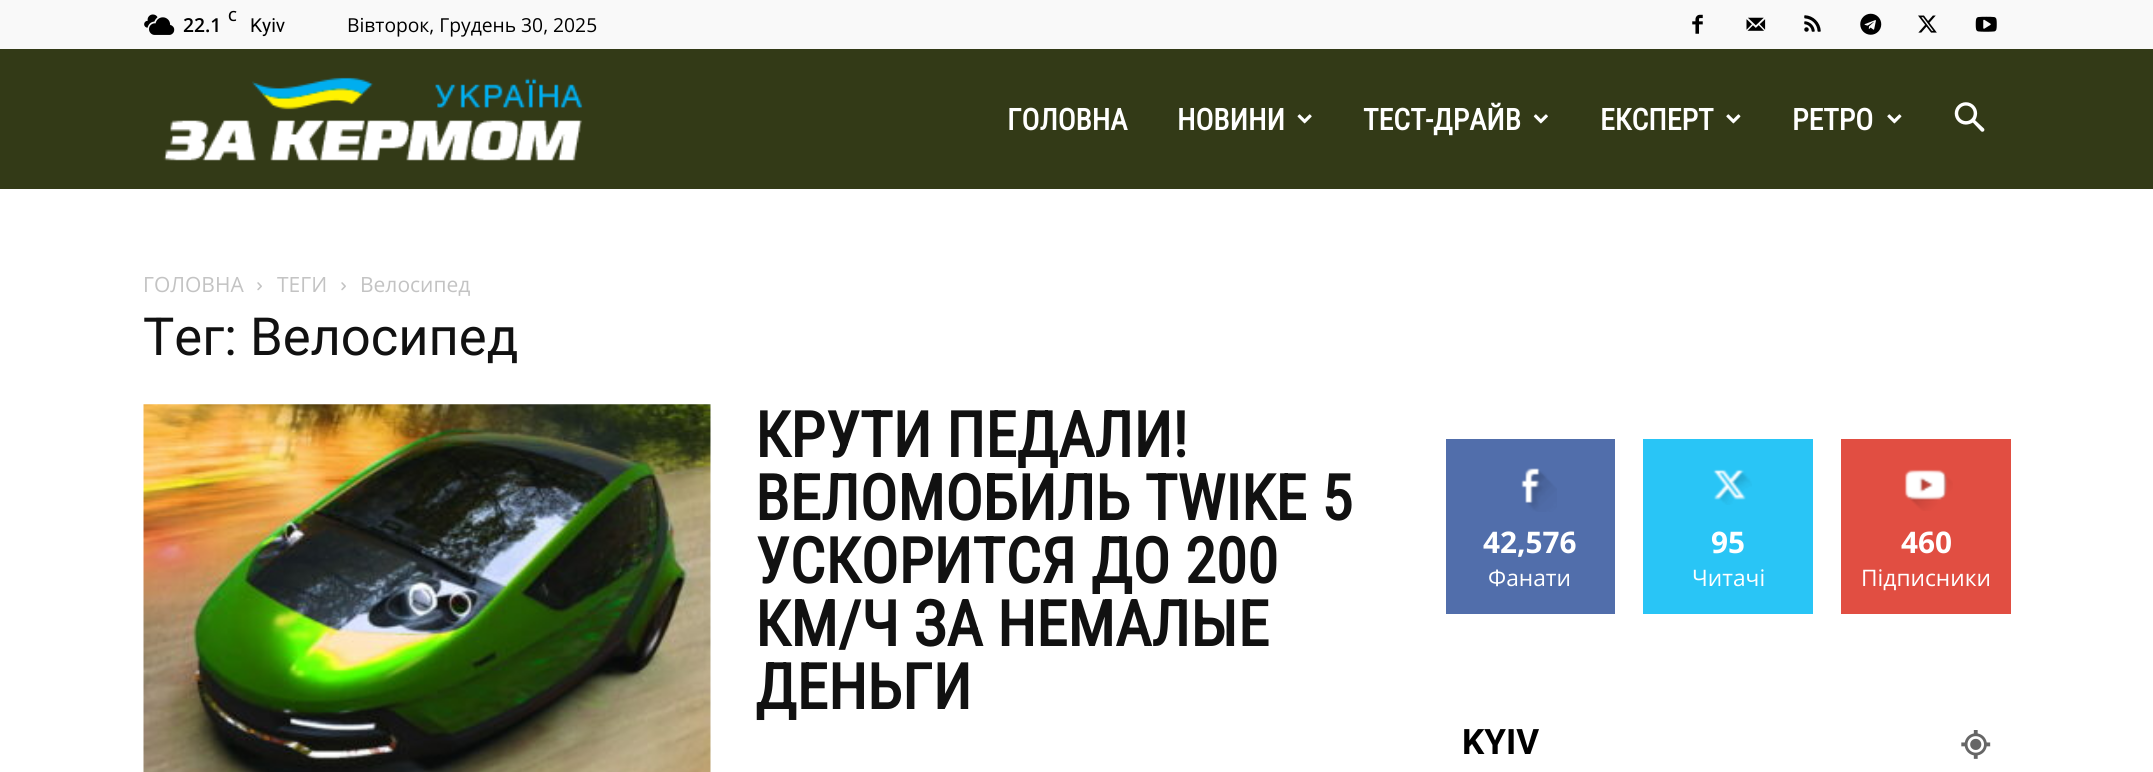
#include <cairo/cairo.h>
#include <math.h>
#include <stddef.h>

typedef struct { double x, y; const char *s; } line_t;
static cairo_t *cr;

static void rgb(unsigned color)
{
	cairo_set_source_rgb(cr, (color >> 16) / 255.0, (color >> 8 & 255) / 255.0, (color & 255) / 255.0);
}

static void image(const char *path, double x, double y, double w, double h)
{
	cairo_surface_t *image = cairo_image_surface_create_from_png(path);
	cairo_save(cr);
	cairo_set_source_surface(cr, image, x, y);
	cairo_rectangle(cr, x, y, w, h);
	cairo_fill(cr);
	cairo_restore(cr);
	cairo_surface_destroy(image);
}

int main(void) {
	cairo_surface_t *surface = cairo_image_surface_create(CAIRO_FORMAT_RGB24, 2153, 772);
	cr = cairo_create(surface);
	cairo_font_options_t *options = cairo_font_options_create();
	cairo_font_options_set_hint_metrics(options, CAIRO_HINT_METRICS_OFF);
	cairo_font_options_set_hint_style(options, CAIRO_HINT_STYLE_NONE);
	cairo_set_font_options(cr, options);
	cairo_set_miter_limit(cr, 4);
	rgb(0xffffff);
	cairo_paint(cr);
	rgb(0xf9f9f9);
	cairo_rectangle(cr, 0, 0, 2153, 49);
	cairo_fill(cr);
	image("img/1.png", 144, 14, 31, 21);
	image("img/2.png", 1692, 14, 11, 20);
	image("img/3.png", 1746, 17, 20, 14);
	image("img/4.png", 1804, 15, 17, 17);
	image("img/5.png", 1860, 13, 22, 22);
	image("img/6.png", 1918, 15, 19, 18);
	image("img/7.png", 1975, 16, 22, 16);
	rgb(0x333a17);
	cairo_rectangle(cr, 0, 49, 2153, 140);
	cairo_fill(cr);
	image("img/8.png", 163, 77, 420, 84);
	image("img/9.png", 1297, 114, 15, 10);
	image("img/10.png", 1533, 114, 15, 10);
	image("img/11.png", 1726, 114, 15, 10);
	image("img/11.png", 1887, 114, 15, 10);
	image("img/12.png", 1954, 102, 31, 30);
	image("img/13.png", 257, 282, 5, 9);
	image("img/13.png", 341, 282, 5, 9);
	image("img/14.png", 143, 404, 568, 368);
	rgb(0x516eab);
	cairo_rectangle(cr, 1446, 439, 169, 175);
	cairo_fill(cr);
	image("img/15.png", 1521, 468, 36, 44);
	rgb(0x29c5f6);
	cairo_rectangle(cr, 1643, 439, 170, 175);
	cairo_fill(cr);
	image("img/16.png", 1713, 469, 39, 36);
	rgb(0xe14e42);
	cairo_rectangle(cr, 1841, 439, 170, 175);
	cairo_fill(cr);
	image("img/17.png", 1904, 469, 49, 42);
	image("img/18.png", 1961, 730, 30, 29);
	cairo_select_font_face(cr, "Open Sans SemiBold", CAIRO_FONT_SLANT_NORMAL, CAIRO_FONT_WEIGHT_NORMAL);
	cairo_set_font_size(cr, 14);
	rgb(0x000000);
	cairo_move_to(cr, 228, 21);
	cairo_show_text(cr, "C");
	cairo_set_font_size(cr, 19.25);
	cairo_move_to(cr, 183, 32);
	cairo_show_text(cr, "22.1");
	cairo_select_font_face(cr, "Roboto", CAIRO_FONT_SLANT_NORMAL, CAIRO_FONT_WEIGHT_NORMAL);
	cairo_move_to(cr, 250, 32);
	cairo_show_text(cr, "Kyiv");
	cairo_select_font_face(cr, "Open Sans", CAIRO_FONT_SLANT_NORMAL, CAIRO_FONT_WEIGHT_NORMAL);
	cairo_move_to(cr, 347, 32);
	cairo_show_text(cr, "Вівторок, Грудень 30, 2025");
	cairo_select_font_face(cr, "Roboto Condensed", CAIRO_FONT_SLANT_NORMAL, CAIRO_FONT_WEIGHT_BOLD);
	cairo_set_font_size(cr, 29.75);
	rgb(0xffffff);
	{
		static const line_t items[] = {
			{1007, 130, "ГОЛОВНА"},
			{1177, 130, "НОВИНИ"},
			{1363, 130, "ТЕСТ-ДРАЙВ"},
			{1600, 130, "ЕКСПЕРТ"},
			{1792, 130, "РЕТРО"},
		};
		for (size_t i = 0; i < sizeof items / sizeof *items; i++) {
			cairo_move_to(cr, items[i].x, items[i].y);
			cairo_show_text(cr, items[i].s);
		}
	}
	cairo_select_font_face(cr, "Open Sans", CAIRO_FONT_SLANT_NORMAL, CAIRO_FONT_WEIGHT_NORMAL);
	cairo_set_font_size(cr, 21);
	rgb(0xc3c3c3);
	{
		static const line_t items[] = {
			{143, 292, "ГОЛОВНА"},
			{277, 292, "ТЕГИ"},
			{360, 292, "Велосипед"},
		};
		for (size_t i = 0; i < sizeof items / sizeof *items; i++) {
			cairo_move_to(cr, items[i].x, items[i].y);
			cairo_show_text(cr, items[i].s);
		}
	}
	cairo_select_font_face(cr, "Roboto", CAIRO_FONT_SLANT_NORMAL, CAIRO_FONT_WEIGHT_NORMAL);
	cairo_set_font_size(cr, 52.5);
	rgb(0x111111);
	cairo_move_to(cr, 143, 355);
	cairo_show_text(cr, "Тег: Велосипед");
	cairo_select_font_face(cr, "Roboto Condensed", CAIRO_FONT_SLANT_NORMAL, CAIRO_FONT_WEIGHT_BOLD);
	cairo_set_font_size(cr, 63);
	{
		static const line_t items[] = {
			{755, 457, "КРУТИ ПЕДАЛИ!"},
			{755, 520, "ВЕЛОМОБИЛЬ TWIKE 5"},
			{755, 583, "УСКОРИТСЯ ДО 200"},
			{755, 646, "КМ/Ч ЗА НЕМАЛЫЕ"},
			{755, 709, "ДЕНЬГИ"},
		};
		for (size_t i = 0; i < sizeof items / sizeof *items; i++) {
			cairo_move_to(cr, items[i].x, items[i].y);
			cairo_show_text(cr, items[i].s);
		}
	}
	cairo_select_font_face(cr, "Open Sans", CAIRO_FONT_SLANT_NORMAL, CAIRO_FONT_WEIGHT_BOLD);
	cairo_set_font_size(cr, 29.75);
	rgb(0xffffff);
	cairo_move_to(cr, 1483, 553);
	cairo_show_text(cr, "42,576");
	cairo_select_font_face(cr, "Open Sans", CAIRO_FONT_SLANT_NORMAL, CAIRO_FONT_WEIGHT_NORMAL);
	cairo_set_font_size(cr, 22.75);
	cairo_move_to(cr, 1488, 586);
	cairo_show_text(cr, "Фанати");
	cairo_select_font_face(cr, "Open Sans", CAIRO_FONT_SLANT_NORMAL, CAIRO_FONT_WEIGHT_BOLD);
	cairo_set_font_size(cr, 29.75);
	cairo_move_to(cr, 1711, 553);
	cairo_show_text(cr, "95");
	cairo_select_font_face(cr, "Open Sans", CAIRO_FONT_SLANT_NORMAL, CAIRO_FONT_WEIGHT_NORMAL);
	cairo_set_font_size(cr, 22.75);
	cairo_move_to(cr, 1692, 586);
	cairo_show_text(cr, "Читачі");
	cairo_select_font_face(cr, "Open Sans", CAIRO_FONT_SLANT_NORMAL, CAIRO_FONT_WEIGHT_BOLD);
	cairo_set_font_size(cr, 29.75);
	cairo_move_to(cr, 1901, 553);
	cairo_show_text(cr, "460");
	cairo_select_font_face(cr, "Open Sans", CAIRO_FONT_SLANT_NORMAL, CAIRO_FONT_WEIGHT_NORMAL);
	cairo_set_font_size(cr, 22.75);
	cairo_move_to(cr, 1861, 586);
	cairo_show_text(cr, "Підписники");
	cairo_select_font_face(cr, "Roboto", CAIRO_FONT_SLANT_NORMAL, CAIRO_FONT_WEIGHT_BOLD);
	cairo_set_font_size(cr, 35);
	rgb(0x000000);
	cairo_move_to(cr, 1462, 754);
	cairo_show_text(cr, "KYIV");
	cairo_surface_write_to_png(surface, "page.png");
	cairo_font_options_destroy(options);
	cairo_destroy(cr);
	cairo_surface_destroy(surface);
	return 0;
}
